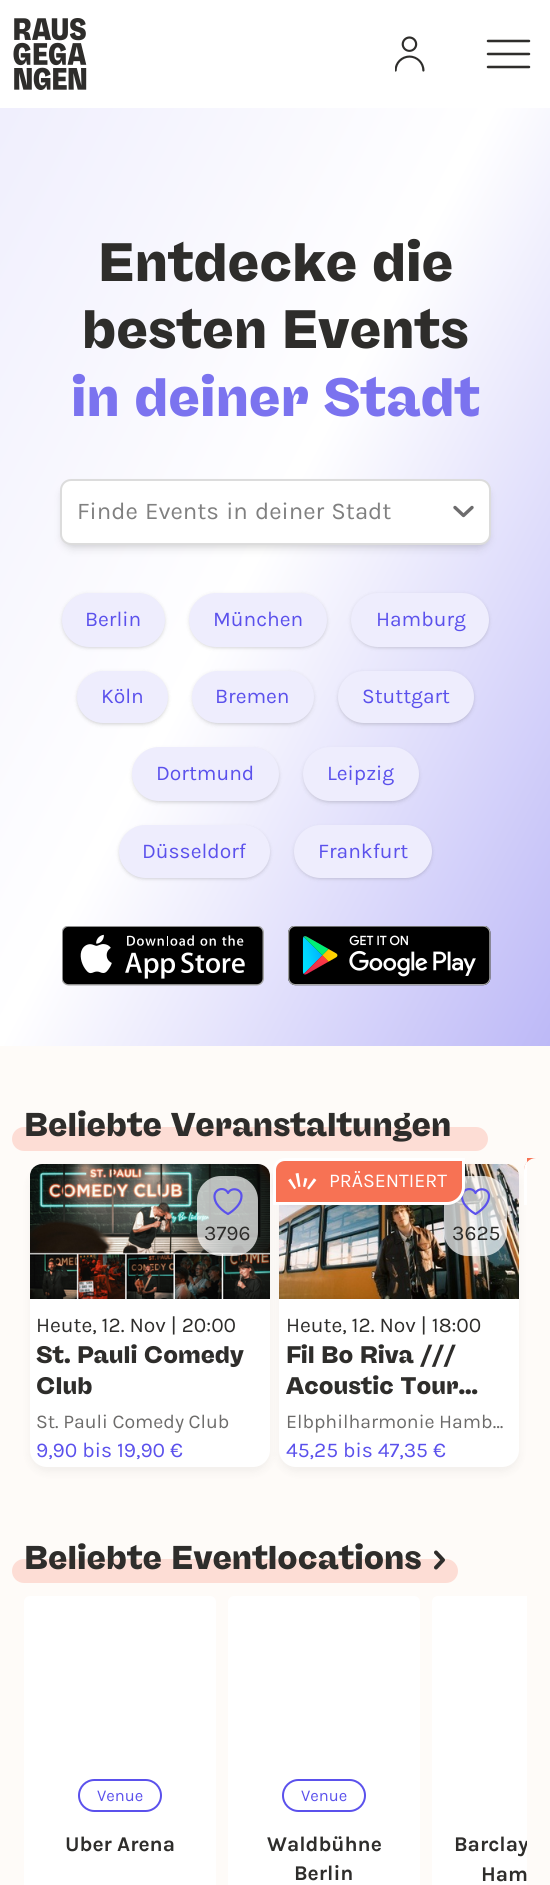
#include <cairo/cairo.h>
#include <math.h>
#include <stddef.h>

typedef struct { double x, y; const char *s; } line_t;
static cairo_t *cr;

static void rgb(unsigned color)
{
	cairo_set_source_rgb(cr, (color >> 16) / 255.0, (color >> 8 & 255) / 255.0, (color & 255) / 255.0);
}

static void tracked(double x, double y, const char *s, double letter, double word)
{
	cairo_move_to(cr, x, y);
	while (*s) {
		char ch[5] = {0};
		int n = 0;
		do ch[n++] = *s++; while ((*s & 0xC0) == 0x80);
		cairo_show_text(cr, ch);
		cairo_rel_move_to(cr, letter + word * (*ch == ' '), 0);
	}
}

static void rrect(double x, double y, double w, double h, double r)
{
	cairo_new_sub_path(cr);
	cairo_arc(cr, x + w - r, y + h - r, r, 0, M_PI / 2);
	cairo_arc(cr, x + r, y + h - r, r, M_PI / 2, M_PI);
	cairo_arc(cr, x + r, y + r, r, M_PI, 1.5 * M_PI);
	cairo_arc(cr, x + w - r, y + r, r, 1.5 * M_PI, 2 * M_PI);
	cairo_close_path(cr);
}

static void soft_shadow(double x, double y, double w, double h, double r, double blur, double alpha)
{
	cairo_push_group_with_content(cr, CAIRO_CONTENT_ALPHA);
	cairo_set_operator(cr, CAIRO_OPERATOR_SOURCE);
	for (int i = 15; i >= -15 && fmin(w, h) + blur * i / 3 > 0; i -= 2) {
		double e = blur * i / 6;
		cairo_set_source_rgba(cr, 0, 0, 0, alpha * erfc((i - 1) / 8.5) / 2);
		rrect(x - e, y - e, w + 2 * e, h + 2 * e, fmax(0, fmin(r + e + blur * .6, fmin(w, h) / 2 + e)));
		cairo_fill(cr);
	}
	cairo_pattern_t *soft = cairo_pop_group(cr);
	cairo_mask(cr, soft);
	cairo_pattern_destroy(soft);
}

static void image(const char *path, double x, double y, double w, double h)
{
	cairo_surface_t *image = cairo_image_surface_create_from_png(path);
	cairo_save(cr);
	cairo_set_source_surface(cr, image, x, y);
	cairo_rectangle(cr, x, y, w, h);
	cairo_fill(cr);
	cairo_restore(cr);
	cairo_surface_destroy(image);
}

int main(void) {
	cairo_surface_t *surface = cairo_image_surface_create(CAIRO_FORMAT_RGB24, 550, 1885);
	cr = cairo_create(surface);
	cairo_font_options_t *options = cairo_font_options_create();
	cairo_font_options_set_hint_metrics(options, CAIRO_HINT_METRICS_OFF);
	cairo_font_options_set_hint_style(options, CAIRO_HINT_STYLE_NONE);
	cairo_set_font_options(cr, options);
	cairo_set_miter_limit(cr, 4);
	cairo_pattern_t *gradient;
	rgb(0xfefbf8);
	cairo_paint(cr);
	rgb(0xffffff);
	cairo_rectangle(cr, 0, 0, 550, 108);
	cairo_fill(cr);
	image("img/1.png", 13, 18, 74, 72);
	image("img/2.png", 395, 36, 30, 36);
	cairo_new_path(cr);
	cairo_move_to(cr, 488, 41);
	cairo_line_to(cr, 529, 41);
	cairo_move_to(cr, 488, 54);
	cairo_line_to(cr, 529, 54);
	cairo_move_to(cr, 488, 67);
	cairo_line_to(cr, 529, 67);
	rgb(0x2e2d2b);
	cairo_set_line_width(cr, 2.5);
	cairo_set_line_cap(cr, CAIRO_LINE_CAP_ROUND);
	cairo_set_line_join(cr, CAIRO_LINE_JOIN_ROUND);
	cairo_stroke(cr);
	gradient = cairo_pattern_create_linear(-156, 296, 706, 750);
	cairo_pattern_add_color_stop_rgba(gradient, 0, 0.933, 0.929, 0.992, 1);
	cairo_pattern_add_color_stop_rgba(gradient, 0.5, 1, 1, 1, 1);
	cairo_pattern_add_color_stop_rgba(gradient, 1, 0.741, 0.725, 0.969, 1);
	cairo_set_source(cr, gradient);
	cairo_pattern_destroy(gradient);
	cairo_rectangle(cr, 0, 108, 550, 938);
	cairo_fill(cr);
	rgb(0x000000);
	soft_shadow(63, 485, 425, 60, 9, 3, 0.1);
	soft_shadow(62, 486, 427, 63, 11, 4.5, 0.1);
	rgb(0xffffff);
	rrect(61, 480, 429, 64, 10);
	cairo_fill_preserve(cr);
	rgb(0xdcdcdc);
	cairo_set_line_width(cr, 2);
	cairo_set_line_cap(cr, CAIRO_LINE_CAP_BUTT);
	cairo_set_line_join(cr, CAIRO_LINE_JOIN_MITER);
	cairo_stroke(cr);
	cairo_new_path(cr);
	cairo_move_to(cr, 472, 507.5);
	cairo_line_to(cr, 463.5, 515.5);
	cairo_line_to(cr, 455, 507.5);
	rgb(0x6d6c6d);
	cairo_set_line_width(cr, 3.4);
	cairo_set_line_cap(cr, CAIRO_LINE_CAP_ROUND);
	cairo_set_line_join(cr, CAIRO_LINE_JOIN_ROUND);
	cairo_stroke(cr);
	rgb(0x000000);
	soft_shadow(63, 596, 101, 51, 25.5, 1.5, 0.1);
	soft_shadow(62, 594, 103, 54, 27, 2, 0.1);
	rgb(0xeeedfd);
	rrect(62, 593, 103, 54, 27);
	cairo_fill(cr);
	rgb(0x000000);
	soft_shadow(191, 596, 135, 51, 25.5, 1.5, 0.1);
	soft_shadow(189, 594, 138, 54, 27, 2, 0.1);
	rgb(0xeeedfd);
	rrect(189, 593, 138, 54, 27);
	cairo_fill(cr);
	rgb(0x000000);
	soft_shadow(353, 596, 135, 51, 25.5, 1.5, 0.1);
	soft_shadow(351, 594, 138, 54, 27, 2, 0.1);
	rgb(0xeeedfd);
	rrect(351, 593, 138, 54, 27);
	cairo_fill(cr);
	rgb(0x000000);
	soft_shadow(78, 674, 89, 49, 24.5, 1.5, 0.1);
	soft_shadow(77, 672, 91, 53, 26.5, 2, 0.1);
	rgb(0xeeedfd);
	rrect(77, 671, 91, 52, 26);
	cairo_fill(cr);
	rgb(0x000000);
	soft_shadow(194, 674, 118, 49, 24.5, 1.5, 0.1);
	soft_shadow(192, 672, 122, 53, 26.5, 2, 0.1);
	rgb(0xeeedfd);
	rrect(192, 671, 122, 52, 26);
	cairo_fill(cr);
	rgb(0x000000);
	soft_shadow(339, 674, 134, 49, 24.5, 1.5, 0.1);
	soft_shadow(338, 672, 136, 53, 26.5, 2, 0.1);
	rgb(0xeeedfd);
	rrect(338, 671, 136, 52, 26);
	cairo_fill(cr);
	rgb(0x000000);
	soft_shadow(134, 750, 144, 51, 25.5, 1.5, 0.1);
	soft_shadow(132, 749, 147, 54, 27, 2, 0.1);
	rgb(0xeeedfd);
	rrect(132, 747, 147, 54, 27);
	cairo_fill(cr);
	rgb(0x000000);
	soft_shadow(305, 750, 112, 51, 25.5, 1.5, 0.1);
	soft_shadow(303, 749, 116, 54, 27, 2, 0.1);
	rgb(0xeeedfd);
	rrect(303, 747, 116, 54, 27);
	cairo_fill(cr);
	rgb(0x000000);
	soft_shadow(120, 828, 149, 50, 25, 1.5, 0.1);
	soft_shadow(119, 827, 151, 52, 26, 2, 0.1);
	rgb(0xeeedfd);
	rrect(119, 825, 151, 53, 26.5);
	cairo_fill(cr);
	rgb(0x000000);
	soft_shadow(296, 828, 135, 50, 25, 1.5, 0.1);
	soft_shadow(294, 827, 138, 52, 26, 2, 0.1);
	rgb(0xeeedfd);
	rrect(294, 825, 138, 53, 26.5);
	cairo_fill(cr);
	image("img/3.png", 62, 926, 202, 60);
	image("img/4.png", 288, 926, 203, 60);
	rgb(0xfdddd5);
	rrect(12, 1127, 476, 24, 12);
	cairo_fill(cr);
	rgb(0x000000);
	soft_shadow(30, 1169, 240, 303, 17, 4.5, 0.05);
	rgb(0xffffff);
	rrect(30, 1164, 240, 303, 17);
	cairo_fill(cr);
	image("img/5.png", 30, 1164, 240, 135);
	cairo_set_source_rgba(cr, 1, 1, 1, 0.7);
	rrect(197, 1176, 61, 80, 24);
	cairo_fill(cr);
	cairo_new_path(cr);
	cairo_move_to(cr, 241.5, 1196);
	cairo_curve_to(cr, 241.5, 1188.5, 231, 1187, 228, 1193);
	cairo_curve_to(cr, 224.5, 1185, 209, 1189.5, 216.5, 1203.5);
	cairo_curve_to(cr, 219, 1207.5, 223.5, 1211.5, 228, 1214);
	cairo_curve_to(cr, 228, 1214, 241.5, 1206.5, 241.5, 1196);
	cairo_close_path(cr);
	rgb(0x5b51ec);
	cairo_set_line_width(cr, 2.2);
	cairo_stroke(cr);
	rgb(0x000000);
	soft_shadow(279, 1169, 240, 303, 17, 4.5, 0.05);
	rgb(0xffffff);
	rrect(279, 1164, 240, 303, 17);
	cairo_fill(cr);
	image("img/6.png", 279, 1164, 240, 135);
	cairo_set_source_rgba(cr, 1, 1, 1, 0.7);
	rrect(444, 1176, 63, 80, 24);
	cairo_fill(cr);
	cairo_new_path(cr);
	cairo_move_to(cr, 489, 1196);
	cairo_curve_to(cr, 489, 1188.5, 478.5, 1187, 475.5, 1193);
	cairo_curve_to(cr, 472, 1185, 456.5, 1189.5, 464, 1203.5);
	cairo_curve_to(cr, 466.5, 1207.5, 471, 1211.5, 475.5, 1214);
	cairo_curve_to(cr, 475.5, 1214, 489, 1206.5, 489, 1196);
	cairo_close_path(cr);
	rgb(0x5b51ec);
	cairo_stroke(cr);
	rgb(0x000000);
	soft_shadow(273, 1160, 192, 46, 18, 1.5, 0.05);
	rgb(0xf77254);
	cairo_new_path(cr);
	cairo_move_to(cr, 285, 1159.5);
	cairo_line_to(cr, 463.5, 1159.5);
	cairo_line_to(cr, 463.5, 1187);
	cairo_curve_to(cr, 463.5, 1196, 456, 1203.5, 447, 1203.5);
	cairo_line_to(cr, 274.5, 1203.5);
	cairo_line_to(cr, 274.5, 1170);
	cairo_curve_to(cr, 274.5, 1164, 279, 1159.5, 285, 1159.5);
	cairo_close_path(cr);
	cairo_fill_preserve(cr);
	rgb(0xffffff);
	cairo_set_line_width(cr, 3);
	cairo_set_line_cap(cr, CAIRO_LINE_CAP_BUTT);
	cairo_set_line_join(cr, CAIRO_LINE_JOIN_MITER);
	cairo_stroke(cr);
	image("img/7.png", 288, 1173, 29, 17);
	rgb(0xf77254);
	cairo_new_path(cr);
	cairo_move_to(cr, 536, 1158);
	cairo_line_to(cr, 527, 1158);
	cairo_line_to(cr, 527, 1205);
	cairo_line_to(cr, 524, 1205);
	cairo_line_to(cr, 524, 1170);
	cairo_curve_to(cr, 524, 1163.5, 529.5, 1158, 536, 1158);
	cairo_close_path(cr);
	cairo_fill(cr);
	cairo_save(cr);
	cairo_rectangle(cr, 24, 1152, 503, 327);
	cairo_clip(cr);
	cairo_new_path(cr);
	cairo_move_to(cr, 536, 1159.5);
	cairo_line_to(cr, 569.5, 1159.5);
	cairo_line_to(cr, 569.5, 1187);
	cairo_curve_to(cr, 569.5, 1196, 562, 1203.5, 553, 1203.5);
	cairo_line_to(cr, 525.5, 1203.5);
	cairo_line_to(cr, 525.5, 1170);
	cairo_curve_to(cr, 525.5, 1164, 530, 1159.5, 536, 1159.5);
	cairo_close_path(cr);
	rgb(0xffffff);
	cairo_stroke(cr);
	cairo_restore(cr);
	rgb(0xfdddd5);
	rrect(12, 1559, 446, 24, 12);
	cairo_fill(cr);
	cairo_new_path(cr);
	cairo_move_to(cr, 436, 1552.5);
	cairo_line_to(cr, 443, 1560);
	cairo_line_to(cr, 436, 1567.5);
	rgb(0x2e2d2b);
	cairo_set_line_width(cr, 4);
	cairo_set_line_cap(cr, CAIRO_LINE_CAP_ROUND);
	cairo_set_line_join(cr, CAIRO_LINE_JOIN_ROUND);
	cairo_stroke(cr);
	rgb(0xffffff);
	rrect(24, 1596, 192, 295, 6);
	cairo_fill(cr);
	rrect(79, 1780, 82, 31, 15.5);
	rgb(0x5b51ec);
	cairo_set_line_width(cr, 2);
	cairo_set_line_cap(cr, CAIRO_LINE_CAP_BUTT);
	cairo_set_line_join(cr, CAIRO_LINE_JOIN_MITER);
	cairo_stroke(cr);
	rgb(0xffffff);
	rrect(228, 1596, 192, 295, 6);
	cairo_fill(cr);
	rrect(283, 1780, 82, 31, 15.5);
	rgb(0x5b51ec);
	cairo_stroke(cr);
	rgb(0xffffff);
	cairo_new_path(cr);
	cairo_move_to(cr, 438, 1596);
	cairo_line_to(cr, 527, 1596);
	cairo_line_to(cr, 527, 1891);
	cairo_line_to(cr, 438, 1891);
	cairo_curve_to(cr, 434.5, 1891, 432, 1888.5, 432, 1885);
	cairo_line_to(cr, 432, 1602);
	cairo_curve_to(cr, 432, 1598.5, 434.5, 1596, 438, 1596);
	cairo_close_path(cr);
	cairo_fill(cr);
	cairo_select_font_face(cr, "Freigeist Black", CAIRO_FONT_SLANT_NORMAL, CAIRO_FONT_WEIGHT_NORMAL);
	cairo_set_font_size(cr, 54);
	rgb(0x2e2d2b);
	cairo_move_to(cr, 98, 281);
	cairo_show_text(cr, "Entdecke die");
	cairo_move_to(cr, 82, 348);
	cairo_show_text(cr, "besten Events");
	rgb(0x7b73ef);
	cairo_move_to(cr, 71, 416);
	cairo_show_text(cr, "in deiner Stadt");
	cairo_select_font_face(cr, "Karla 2", CAIRO_FONT_SLANT_NORMAL, CAIRO_FONT_WEIGHT_NORMAL);
	cairo_set_font_size(cr, 24);
	rgb(0x808080);
	tracked(77, 519, "Finde Events in deiner Stadt", 0, 1.5);
	cairo_select_font_face(cr, "Karla", CAIRO_FONT_SLANT_NORMAL, CAIRO_FONT_WEIGHT_NORMAL);
	cairo_set_font_size(cr, 21);
	rgb(0x5b51ec);
	{
		static const line_t items[] = {
			{85, 626, "Berlin"},
			{213, 626, "München"},
			{376, 626, "Hamburg"},
			{101, 703, "Köln"},
			{215, 703, "Bremen"},
			{362, 703, "Stuttgart"},
			{156, 780, "Dortmund"},
			{327, 780, "Leipzig"},
			{142, 858, "Düsseldorf"},
			{318, 858, "Frankfurt"},
		};
		for (size_t i = 0; i < sizeof items / sizeof *items; i++) {
			cairo_move_to(cr, items[i].x, items[i].y);
			cairo_show_text(cr, items[i].s);
		}
	}
	cairo_select_font_face(cr, "Freigeist Black", CAIRO_FONT_SLANT_NORMAL, CAIRO_FONT_WEIGHT_NORMAL);
	cairo_set_font_size(cr, 33);
	rgb(0x2e2d2b);
	cairo_move_to(cr, 24, 1136);
	cairo_show_text(cr, "Beliebte Veranstaltungen");
	cairo_select_font_face(cr, "Karla 2", CAIRO_FONT_SLANT_NORMAL, CAIRO_FONT_WEIGHT_NORMAL);
	cairo_set_font_size(cr, 21);
	cairo_move_to(cr, 204, 1240);
	cairo_show_text(cr, "3796");
	cairo_move_to(cr, 36, 1332);
	cairo_show_text(cr, "Heute, 12. Nov | 20:00");
	cairo_select_font_face(cr, "Freigeist Black", CAIRO_FONT_SLANT_NORMAL, CAIRO_FONT_WEIGHT_NORMAL);
	cairo_set_font_size(cr, 24);
	cairo_move_to(cr, 36, 1363);
	cairo_show_text(cr, "St. Pauli Comedy");
	cairo_move_to(cr, 36, 1394);
	cairo_show_text(cr, "Club");
	cairo_select_font_face(cr, "Karla 2", CAIRO_FONT_SLANT_NORMAL, CAIRO_FONT_WEIGHT_NORMAL);
	cairo_set_font_size(cr, 19.5);
	rgb(0x6d6c6b);
	cairo_move_to(cr, 36, 1428);
	cairo_show_text(cr, "St. Pauli Comedy Club");
	cairo_set_font_size(cr, 21);
	rgb(0x5b51ec);
	cairo_move_to(cr, 36, 1457);
	cairo_show_text(cr, "9,90 bis 19,90 €");
	cairo_set_font_size(cr, 19.5);
	rgb(0xffffff);
	cairo_move_to(cr, 329, 1187);
	cairo_show_text(cr, "PRÄSENTIERT");
	cairo_set_font_size(cr, 21);
	rgb(0x2e2d2b);
	cairo_move_to(cr, 452, 1240);
	cairo_show_text(cr, "3625");
	cairo_move_to(cr, 286, 1332);
	cairo_show_text(cr, "Heute, 12. Nov | 18:00");
	cairo_select_font_face(cr, "Freigeist Black", CAIRO_FONT_SLANT_NORMAL, CAIRO_FONT_WEIGHT_NORMAL);
	cairo_set_font_size(cr, 24);
	cairo_move_to(cr, 286, 1363);
	cairo_show_text(cr, "Fil Bo Riva ///");
	cairo_move_to(cr, 286, 1394);
	cairo_show_text(cr, "Acoustic Tour…");
	cairo_select_font_face(cr, "Karla 2", CAIRO_FONT_SLANT_NORMAL, CAIRO_FONT_WEIGHT_NORMAL);
	cairo_set_font_size(cr, 19.5);
	rgb(0x6d6c6b);
	cairo_move_to(cr, 286, 1428);
	cairo_show_text(cr, "Elbphilharmonie Hamb…");
	cairo_set_font_size(cr, 21);
	rgb(0x5b51ec);
	cairo_move_to(cr, 286, 1457);
	cairo_show_text(cr, "45,25 bis 47,35 €");
	cairo_select_font_face(cr, "Freigeist Black", CAIRO_FONT_SLANT_NORMAL, CAIRO_FONT_WEIGHT_NORMAL);
	cairo_set_font_size(cr, 33);
	rgb(0x2e2d2b);
	cairo_move_to(cr, 24, 1569);
	cairo_show_text(cr, "Beliebte Eventlocations");
	cairo_select_font_face(cr, "Karla 2", CAIRO_FONT_SLANT_NORMAL, CAIRO_FONT_WEIGHT_NORMAL);
	cairo_set_font_size(cr, 16.5);
	rgb(0x5b51ec);
	cairo_move_to(cr, 97, 1801);
	cairo_show_text(cr, "Venue");
	cairo_select_font_face(cr, "Karla", CAIRO_FONT_SLANT_NORMAL, CAIRO_FONT_WEIGHT_BOLD);
	cairo_set_font_size(cr, 21);
	rgb(0x2e2d2b);
	cairo_move_to(cr, 65, 1851);
	cairo_show_text(cr, "Uber Arena");
	cairo_select_font_face(cr, "Karla 2", CAIRO_FONT_SLANT_NORMAL, CAIRO_FONT_WEIGHT_NORMAL);
	cairo_set_font_size(cr, 16.5);
	rgb(0x5b51ec);
	cairo_move_to(cr, 301, 1801);
	cairo_show_text(cr, "Venue");
	cairo_select_font_face(cr, "Karla", CAIRO_FONT_SLANT_NORMAL, CAIRO_FONT_WEIGHT_BOLD);
	cairo_set_font_size(cr, 21);
	rgb(0x2e2d2b);
	cairo_move_to(cr, 267, 1851);
	cairo_show_text(cr, "Waldbühne");
	cairo_move_to(cr, 294, 1880);
	cairo_show_text(cr, "Berlin");
	cairo_save(cr);
	cairo_rectangle(cr, 450, 1830, 77, 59);
	cairo_clip(cr);
	cairo_move_to(cr, 454, 1851);
	cairo_show_text(cr, "Barclay");
	cairo_restore(cr);
	cairo_move_to(cr, 481, 1881);
	cairo_show_text(cr, "Ham");
	cairo_surface_write_to_png(surface, "page.png");
	cairo_font_options_destroy(options);
	cairo_destroy(cr);
	cairo_surface_destroy(surface);
	return 0;
}
